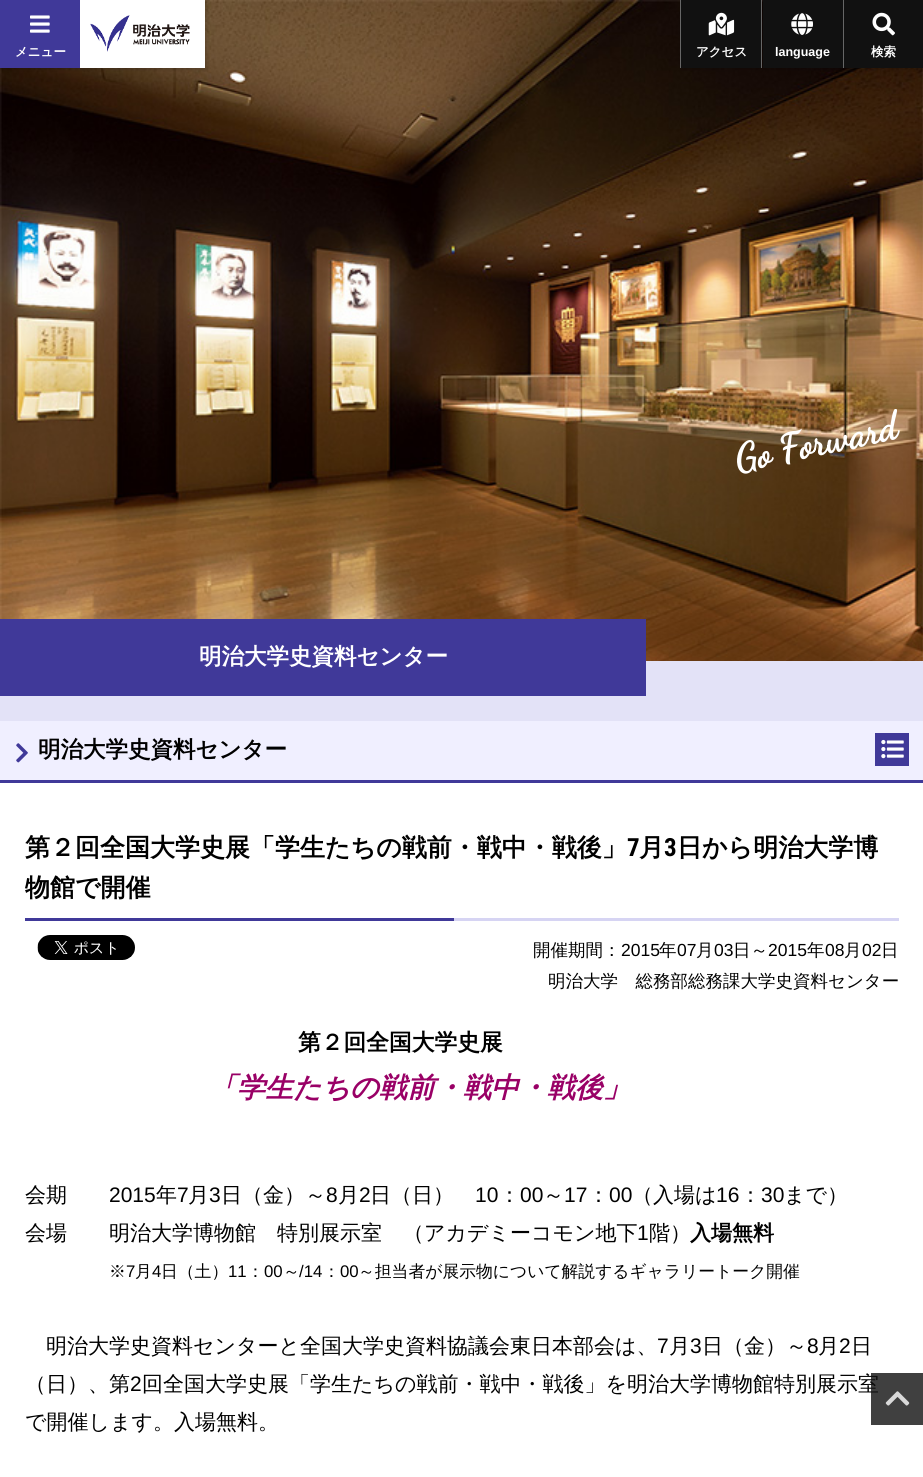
#include <cairo/cairo.h>
#include <math.h>
#include <stddef.h>

typedef struct { double x, y, w, h; unsigned color; } box_t;
static cairo_t *cr;

static void rgb(unsigned color)
{
	cairo_set_source_rgb(cr, (color >> 16) / 255.0, (color >> 8 & 255) / 255.0, (color & 255) / 255.0);
}

static void rrect(double x, double y, double w, double h, double r)
{
	cairo_new_sub_path(cr);
	cairo_arc(cr, x + w - r, y + h - r, r, 0, M_PI / 2);
	cairo_arc(cr, x + r, y + h - r, r, M_PI / 2, M_PI);
	cairo_arc(cr, x + r, y + r, r, M_PI, 1.5 * M_PI);
	cairo_arc(cr, x + w - r, y + r, r, 1.5 * M_PI, 2 * M_PI);
	cairo_close_path(cr);
}

static void soft_shadow(double x, double y, double w, double h, double r, double blur, double alpha)
{
	cairo_push_group_with_content(cr, CAIRO_CONTENT_ALPHA);
	cairo_set_operator(cr, CAIRO_OPERATOR_SOURCE);
	for (int i = 15; i >= -15 && fmin(w, h) + blur * i / 3 > 0; i -= 2) {
		double e = blur * i / 6;
		cairo_set_source_rgba(cr, 0, 0, 0, alpha * erfc((i - 1) / 8.5) / 2);
		rrect(x - e, y - e, w + 2 * e, h + 2 * e, fmax(0, fmin(r + e + blur * .6, fmin(w, h) / 2 + e)));
		cairo_fill(cr);
	}
	cairo_pattern_t *soft = cairo_pop_group(cr);
	cairo_mask(cr, soft);
	cairo_pattern_destroy(soft);
}

static void image(const char *path, double x, double y, double w, double h)
{
	cairo_surface_t *image = cairo_image_surface_create_from_png(path);
	cairo_save(cr);
	cairo_set_source_surface(cr, image, x, y);
	cairo_rectangle(cr, x, y, w, h);
	cairo_fill(cr);
	cairo_restore(cr);
	cairo_surface_destroy(image);
}

int main(void) {
	cairo_surface_t *surface = cairo_image_surface_create(CAIRO_FORMAT_RGB24, 923, 1477);
	cr = cairo_create(surface);
	cairo_font_options_t *options = cairo_font_options_create();
	cairo_font_options_set_hint_metrics(options, CAIRO_HINT_METRICS_OFF);
	cairo_font_options_set_hint_style(options, CAIRO_HINT_STYLE_NONE);
	cairo_set_font_options(cr, options);
	cairo_set_miter_limit(cr, 4);
	rgb(0xffffff);
	cairo_paint(cr);
	image("img/6.png", 0, 0, 923, 661);
	rgb(0x000000);
	soft_shadow(1, 1, 205, 68, 0, 2, 0.2);
	rgb(0x403999);
	cairo_rectangle(cr, 0, 0, 80, 68);
	cairo_fill(cr);
	image("img/1.png", 30, 15, 20, 18);
	rgb(0xffffff);
	cairo_rectangle(cr, 80, 0, 125, 68);
	cairo_fill(cr);
	image("img/2.png", 90, 15, 100, 37);
	rgb(0x000000);
	soft_shadow(681, 1, 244, 68, 0, 2, 0.2);
	rgb(0x666666);
	cairo_rectangle(cr, 680, 0, 1, 68);
	cairo_fill(cr);
	rgb(0x111111);
	cairo_rectangle(cr, 681, 0, 80, 68);
	cairo_fill(cr);
	image("img/3.png", 708, 12, 27, 24);
	rgb(0x666666);
	cairo_rectangle(cr, 761, 0, 1, 68);
	cairo_fill(cr);
	rgb(0x111111);
	cairo_rectangle(cr, 763, 0, 80, 68);
	cairo_fill(cr);
	image("img/4.png", 791, 13, 22, 22);
	rgb(0x666666);
	cairo_rectangle(cr, 843, 0, 1, 68);
	cairo_fill(cr);
	rgb(0x111111);
	cairo_rectangle(cr, 844, 0, 79, 68);
	cairo_fill(cr);
	image("img/5.png", 872, 12, 23, 24);
	{
		static const box_t items[] = {
			{0, 661, 923, 60, 0xe3e2f7},
			{0, 619, 646, 77, 0x403999},
			{0, 721, 923, 59, 0xf0efff},
			{0, 780, 923, 3, 0x403999},
		};
		for (size_t i = 0; i < sizeof items / sizeof *items; i++) {
			rgb(items[i].color);
			cairo_rectangle(cr, items[i].x, items[i].y, items[i].w, items[i].h);
			cairo_fill(cr);
		}
	}
	image("img/7.png", 16, 743, 12, 20);
	cairo_rectangle(cr, 875, 733, 34, 33);
	cairo_fill(cr);
	image("img/8.png", 881, 739, 23, 20);
	rgb(0xd6d4f3);
	cairo_rectangle(cr, 454, 918, 445, 3);
	cairo_fill(cr);
	rgb(0x403999);
	cairo_rectangle(cr, 25, 918, 429, 3);
	cairo_fill(cr);
	image("img/9.png", 37, 935, 98, 25);
	cairo_select_font_face(cr, "WenQuanYi Zen Hei", CAIRO_FONT_SLANT_NORMAL, CAIRO_FONT_WEIGHT_BOLD);
	cairo_set_font_size(cr, 12.5);
	rgb(0xffffff);
	cairo_move_to(cr, 15, 56);
	cairo_show_text(cr, "メニュー");
	cairo_move_to(cr, 696, 56);
	cairo_show_text(cr, "アクセス");
	cairo_select_font_face(cr, "Liberation Sans", CAIRO_FONT_SLANT_NORMAL, CAIRO_FONT_WEIGHT_BOLD);
	cairo_move_to(cr, 775, 56);
	cairo_show_text(cr, "language");
	cairo_select_font_face(cr, "WenQuanYi Zen Hei", CAIRO_FONT_SLANT_NORMAL, CAIRO_FONT_WEIGHT_BOLD);
	cairo_move_to(cr, 871, 56);
	cairo_show_text(cr, "検索");
	cairo_select_font_face(cr, "Dancing Script", CAIRO_FONT_SLANT_NORMAL, CAIRO_FONT_WEIGHT_BOLD);
	cairo_set_font_size(cr, 38.75);
	cairo_save(cr);
	cairo_translate(cr, 738, 472);
	cairo_rotate(cr, -12 * M_PI / 180);
	cairo_move_to(cr, 0, 0);
	cairo_show_text(cr, "Go Forward");
	cairo_restore(cr);
	cairo_select_font_face(cr, "WenQuanYi Zen Hei", CAIRO_FONT_SLANT_NORMAL, CAIRO_FONT_WEIGHT_BOLD);
	cairo_set_font_size(cr, 22.5);
	cairo_move_to(cr, 199, 664);
	cairo_show_text(cr, "明治大学史資料センター");
	rgb(0x000000);
	cairo_move_to(cr, 38, 757);
	cairo_show_text(cr, "明治大学史資料センター");
	cairo_set_font_size(cr, 25);
	cairo_move_to(cr, 25, 856);
	cairo_show_text(cr, "第２回全国大学史展「学生たちの戦前・戦中・戦後」");
	cairo_select_font_face(cr, "Roboto Condensed", CAIRO_FONT_SLANT_NORMAL, CAIRO_FONT_WEIGHT_BOLD);
	cairo_move_to(cr, 627, 856);
	cairo_show_text(cr, "7");
	cairo_select_font_face(cr, "WenQuanYi Zen Hei", CAIRO_FONT_SLANT_NORMAL, CAIRO_FONT_WEIGHT_BOLD);
	cairo_move_to(cr, 639, 856);
	cairo_show_text(cr, "月");
	cairo_select_font_face(cr, "Roboto Condensed", CAIRO_FONT_SLANT_NORMAL, CAIRO_FONT_WEIGHT_BOLD);
	cairo_move_to(cr, 664, 856);
	cairo_show_text(cr, "3");
	cairo_select_font_face(cr, "WenQuanYi Zen Hei", CAIRO_FONT_SLANT_NORMAL, CAIRO_FONT_WEIGHT_BOLD);
	cairo_move_to(cr, 677, 856);
	cairo_show_text(cr, "日から明治大学博");
	cairo_move_to(cr, 25, 896);
	cairo_show_text(cr, "物館で開催");
	cairo_select_font_face(cr, "WenQuanYi Zen Hei Medium", CAIRO_FONT_SLANT_NORMAL, CAIRO_FONT_WEIGHT_NORMAL);
	cairo_set_font_size(cr, 17.5);
	cairo_move_to(cr, 533, 956);
	cairo_show_text(cr, "開催期間：");
	cairo_select_font_face(cr, "Liberation Sans", CAIRO_FONT_SLANT_NORMAL, CAIRO_FONT_WEIGHT_NORMAL);
	cairo_move_to(cr, 621, 956);
	cairo_show_text(cr, "2015");
	cairo_select_font_face(cr, "WenQuanYi Zen Hei Medium", CAIRO_FONT_SLANT_NORMAL, CAIRO_FONT_WEIGHT_NORMAL);
	cairo_move_to(cr, 659, 956);
	cairo_show_text(cr, "年");
	cairo_select_font_face(cr, "Liberation Sans", CAIRO_FONT_SLANT_NORMAL, CAIRO_FONT_WEIGHT_NORMAL);
	cairo_move_to(cr, 677, 956);
	cairo_show_text(cr, "07");
	cairo_select_font_face(cr, "WenQuanYi Zen Hei Medium", CAIRO_FONT_SLANT_NORMAL, CAIRO_FONT_WEIGHT_NORMAL);
	cairo_move_to(cr, 696, 956);
	cairo_show_text(cr, "月");
	cairo_select_font_face(cr, "Liberation Sans", CAIRO_FONT_SLANT_NORMAL, CAIRO_FONT_WEIGHT_NORMAL);
	cairo_move_to(cr, 714, 956);
	cairo_show_text(cr, "03");
	cairo_select_font_face(cr, "WenQuanYi Zen Hei Medium", CAIRO_FONT_SLANT_NORMAL, CAIRO_FONT_WEIGHT_NORMAL);
	cairo_move_to(cr, 733, 956);
	cairo_show_text(cr, "日～");
	cairo_select_font_face(cr, "Liberation Sans", CAIRO_FONT_SLANT_NORMAL, CAIRO_FONT_WEIGHT_NORMAL);
	cairo_move_to(cr, 768, 956);
	cairo_show_text(cr, "2015");
	cairo_select_font_face(cr, "WenQuanYi Zen Hei Medium", CAIRO_FONT_SLANT_NORMAL, CAIRO_FONT_WEIGHT_NORMAL);
	cairo_move_to(cr, 807, 956);
	cairo_show_text(cr, "年");
	cairo_select_font_face(cr, "Liberation Sans", CAIRO_FONT_SLANT_NORMAL, CAIRO_FONT_WEIGHT_NORMAL);
	cairo_move_to(cr, 825, 956);
	cairo_show_text(cr, "08");
	cairo_select_font_face(cr, "WenQuanYi Zen Hei Medium", CAIRO_FONT_SLANT_NORMAL, CAIRO_FONT_WEIGHT_NORMAL);
	cairo_move_to(cr, 844, 956);
	cairo_show_text(cr, "月");
	cairo_select_font_face(cr, "Liberation Sans", CAIRO_FONT_SLANT_NORMAL, CAIRO_FONT_WEIGHT_NORMAL);
	cairo_move_to(cr, 862, 956);
	cairo_show_text(cr, "02");
	cairo_select_font_face(cr, "WenQuanYi Zen Hei Medium", CAIRO_FONT_SLANT_NORMAL, CAIRO_FONT_WEIGHT_NORMAL);
	cairo_move_to(cr, 881, 956);
	cairo_show_text(cr, "日");
	cairo_move_to(cr, 548, 987);
	cairo_show_text(cr, "明治大学　総務部総務課大学史資料センター");
	cairo_select_font_face(cr, "WenQuanYi Zen Hei", CAIRO_FONT_SLANT_NORMAL, CAIRO_FONT_WEIGHT_BOLD);
	cairo_set_font_size(cr, 22.75);
	cairo_move_to(cr, 298, 1050);
	cairo_show_text(cr, "第２回全国大学史展");
	cairo_select_font_face(cr, "WenQuanYi Zen Hei", CAIRO_FONT_SLANT_ITALIC, CAIRO_FONT_WEIGHT_BOLD);
	cairo_set_font_size(cr, 28);
	rgb(0x990066);
	cairo_move_to(cr, 209, 1097);
	cairo_show_text(cr, "「学生たちの戦前・戦中・戦後」");
	cairo_select_font_face(cr, "WenQuanYi Zen Hei Medium", CAIRO_FONT_SLANT_NORMAL, CAIRO_FONT_WEIGHT_NORMAL);
	cairo_set_font_size(cr, 21);
	rgb(0x000000);
	cairo_move_to(cr, 25, 1202);
	cairo_show_text(cr, "会期");
	cairo_select_font_face(cr, "Liberation Sans", CAIRO_FONT_SLANT_NORMAL, CAIRO_FONT_WEIGHT_NORMAL);
	cairo_move_to(cr, 109, 1202);
	cairo_show_text(cr, "2015");
	cairo_select_font_face(cr, "WenQuanYi Zen Hei Medium", CAIRO_FONT_SLANT_NORMAL, CAIRO_FONT_WEIGHT_NORMAL);
	cairo_move_to(cr, 156, 1202);
	cairo_show_text(cr, "年");
	cairo_select_font_face(cr, "Liberation Sans", CAIRO_FONT_SLANT_NORMAL, CAIRO_FONT_WEIGHT_NORMAL);
	cairo_move_to(cr, 177, 1202);
	cairo_show_text(cr, "7");
	cairo_select_font_face(cr, "WenQuanYi Zen Hei Medium", CAIRO_FONT_SLANT_NORMAL, CAIRO_FONT_WEIGHT_NORMAL);
	cairo_move_to(cr, 188, 1202);
	cairo_show_text(cr, "月");
	cairo_select_font_face(cr, "Liberation Sans", CAIRO_FONT_SLANT_NORMAL, CAIRO_FONT_WEIGHT_NORMAL);
	cairo_move_to(cr, 209, 1202);
	cairo_show_text(cr, "3");
	cairo_select_font_face(cr, "WenQuanYi Zen Hei Medium", CAIRO_FONT_SLANT_NORMAL, CAIRO_FONT_WEIGHT_NORMAL);
	cairo_move_to(cr, 221, 1202);
	cairo_show_text(cr, "日（金）～");
	cairo_select_font_face(cr, "Liberation Sans", CAIRO_FONT_SLANT_NORMAL, CAIRO_FONT_WEIGHT_NORMAL);
	cairo_move_to(cr, 326, 1202);
	cairo_show_text(cr, "8");
	cairo_select_font_face(cr, "WenQuanYi Zen Hei Medium", CAIRO_FONT_SLANT_NORMAL, CAIRO_FONT_WEIGHT_NORMAL);
	cairo_move_to(cr, 338, 1202);
	cairo_show_text(cr, "月");
	cairo_select_font_face(cr, "Liberation Sans", CAIRO_FONT_SLANT_NORMAL, CAIRO_FONT_WEIGHT_NORMAL);
	cairo_move_to(cr, 359, 1202);
	cairo_show_text(cr, "2");
	cairo_select_font_face(cr, "WenQuanYi Zen Hei Medium", CAIRO_FONT_SLANT_NORMAL, CAIRO_FONT_WEIGHT_NORMAL);
	cairo_move_to(cr, 370, 1202);
	cairo_show_text(cr, "日（日）");
	cairo_select_font_face(cr, "Liberation Sans", CAIRO_FONT_SLANT_NORMAL, CAIRO_FONT_WEIGHT_NORMAL);
	cairo_move_to(cr, 475, 1202);
	cairo_show_text(cr, "10");
	cairo_select_font_face(cr, "WenQuanYi Zen Hei Medium", CAIRO_FONT_SLANT_NORMAL, CAIRO_FONT_WEIGHT_NORMAL);
	cairo_move_to(cr, 499, 1202);
	cairo_show_text(cr, "：");
	cairo_select_font_face(cr, "Liberation Sans", CAIRO_FONT_SLANT_NORMAL, CAIRO_FONT_WEIGHT_NORMAL);
	cairo_move_to(cr, 520, 1202);
	cairo_show_text(cr, "00");
	cairo_select_font_face(cr, "WenQuanYi Zen Hei Medium", CAIRO_FONT_SLANT_NORMAL, CAIRO_FONT_WEIGHT_NORMAL);
	cairo_move_to(cr, 543, 1202);
	cairo_show_text(cr, "～");
	cairo_select_font_face(cr, "Liberation Sans", CAIRO_FONT_SLANT_NORMAL, CAIRO_FONT_WEIGHT_NORMAL);
	cairo_move_to(cr, 564, 1202);
	cairo_show_text(cr, "17");
	cairo_select_font_face(cr, "WenQuanYi Zen Hei Medium", CAIRO_FONT_SLANT_NORMAL, CAIRO_FONT_WEIGHT_NORMAL);
	cairo_move_to(cr, 588, 1202);
	cairo_show_text(cr, "：");
	cairo_select_font_face(cr, "Liberation Sans", CAIRO_FONT_SLANT_NORMAL, CAIRO_FONT_WEIGHT_NORMAL);
	cairo_move_to(cr, 609, 1202);
	cairo_show_text(cr, "00");
	cairo_select_font_face(cr, "WenQuanYi Zen Hei Medium", CAIRO_FONT_SLANT_NORMAL, CAIRO_FONT_WEIGHT_NORMAL);
	cairo_move_to(cr, 632, 1202);
	cairo_show_text(cr, "（入場は");
	cairo_select_font_face(cr, "Liberation Sans", CAIRO_FONT_SLANT_NORMAL, CAIRO_FONT_WEIGHT_NORMAL);
	cairo_move_to(cr, 716, 1202);
	cairo_show_text(cr, "16");
	cairo_select_font_face(cr, "WenQuanYi Zen Hei Medium", CAIRO_FONT_SLANT_NORMAL, CAIRO_FONT_WEIGHT_NORMAL);
	cairo_move_to(cr, 740, 1202);
	cairo_show_text(cr, "：");
	cairo_select_font_face(cr, "Liberation Sans", CAIRO_FONT_SLANT_NORMAL, CAIRO_FONT_WEIGHT_NORMAL);
	cairo_move_to(cr, 761, 1202);
	cairo_show_text(cr, "30");
	cairo_select_font_face(cr, "WenQuanYi Zen Hei Medium", CAIRO_FONT_SLANT_NORMAL, CAIRO_FONT_WEIGHT_NORMAL);
	cairo_move_to(cr, 784, 1202);
	cairo_show_text(cr, "まで）");
	cairo_move_to(cr, 25, 1240);
	cairo_show_text(cr, "会場　　明治大学博物館　特別展示室　（アカデミーコモン地下");
	cairo_select_font_face(cr, "Liberation Sans", CAIRO_FONT_SLANT_NORMAL, CAIRO_FONT_WEIGHT_NORMAL);
	cairo_move_to(cr, 637, 1240);
	cairo_show_text(cr, "1");
	cairo_select_font_face(cr, "WenQuanYi Zen Hei Medium", CAIRO_FONT_SLANT_NORMAL, CAIRO_FONT_WEIGHT_NORMAL);
	cairo_move_to(cr, 649, 1240);
	cairo_show_text(cr, "階）");
	cairo_select_font_face(cr, "WenQuanYi Zen Hei", CAIRO_FONT_SLANT_NORMAL, CAIRO_FONT_WEIGHT_BOLD);
	cairo_move_to(cr, 690, 1240);
	cairo_show_text(cr, "入場無料");
	cairo_select_font_face(cr, "WenQuanYi Zen Hei Medium", CAIRO_FONT_SLANT_NORMAL, CAIRO_FONT_WEIGHT_NORMAL);
	cairo_set_font_size(cr, 16.8);
	cairo_move_to(cr, 109, 1277);
	cairo_show_text(cr, "※");
	cairo_select_font_face(cr, "Liberation Sans", CAIRO_FONT_SLANT_NORMAL, CAIRO_FONT_WEIGHT_NORMAL);
	cairo_move_to(cr, 126, 1277);
	cairo_show_text(cr, "7");
	cairo_select_font_face(cr, "WenQuanYi Zen Hei Medium", CAIRO_FONT_SLANT_NORMAL, CAIRO_FONT_WEIGHT_NORMAL);
	cairo_move_to(cr, 135, 1277);
	cairo_show_text(cr, "月");
	cairo_select_font_face(cr, "Liberation Sans", CAIRO_FONT_SLANT_NORMAL, CAIRO_FONT_WEIGHT_NORMAL);
	cairo_move_to(cr, 152, 1277);
	cairo_show_text(cr, "4");
	cairo_select_font_face(cr, "WenQuanYi Zen Hei Medium", CAIRO_FONT_SLANT_NORMAL, CAIRO_FONT_WEIGHT_NORMAL);
	cairo_move_to(cr, 161, 1277);
	cairo_show_text(cr, "日（土）");
	cairo_select_font_face(cr, "Liberation Sans", CAIRO_FONT_SLANT_NORMAL, CAIRO_FONT_WEIGHT_NORMAL);
	cairo_move_to(cr, 228, 1277);
	cairo_show_text(cr, "11");
	cairo_select_font_face(cr, "WenQuanYi Zen Hei Medium", CAIRO_FONT_SLANT_NORMAL, CAIRO_FONT_WEIGHT_NORMAL);
	cairo_move_to(cr, 247, 1277);
	cairo_show_text(cr, "：");
	cairo_select_font_face(cr, "Liberation Sans", CAIRO_FONT_SLANT_NORMAL, CAIRO_FONT_WEIGHT_NORMAL);
	cairo_move_to(cr, 264, 1277);
	cairo_show_text(cr, "00");
	cairo_select_font_face(cr, "WenQuanYi Zen Hei Medium", CAIRO_FONT_SLANT_NORMAL, CAIRO_FONT_WEIGHT_NORMAL);
	cairo_move_to(cr, 283, 1277);
	cairo_show_text(cr, "～");
	cairo_select_font_face(cr, "Liberation Sans", CAIRO_FONT_SLANT_NORMAL, CAIRO_FONT_WEIGHT_NORMAL);
	cairo_move_to(cr, 299, 1277);
	cairo_show_text(cr, "/14");
	cairo_select_font_face(cr, "WenQuanYi Zen Hei Medium", CAIRO_FONT_SLANT_NORMAL, CAIRO_FONT_WEIGHT_NORMAL);
	cairo_move_to(cr, 323, 1277);
	cairo_show_text(cr, "：");
	cairo_select_font_face(cr, "Liberation Sans", CAIRO_FONT_SLANT_NORMAL, CAIRO_FONT_WEIGHT_NORMAL);
	cairo_move_to(cr, 340, 1277);
	cairo_show_text(cr, "00");
	cairo_select_font_face(cr, "WenQuanYi Zen Hei Medium", CAIRO_FONT_SLANT_NORMAL, CAIRO_FONT_WEIGHT_NORMAL);
	cairo_move_to(cr, 358, 1277);
	cairo_show_text(cr, "～担当者が展示物について解説するギャラリートーク開催");
	cairo_set_font_size(cr, 21);
	cairo_move_to(cr, 46, 1353);
	cairo_show_text(cr, "明治大学史資料センターと全国大学史資料協議会東日本部会は、");
	cairo_select_font_face(cr, "Liberation Sans", CAIRO_FONT_SLANT_NORMAL, CAIRO_FONT_WEIGHT_NORMAL);
	cairo_move_to(cr, 657, 1353);
	cairo_show_text(cr, "7");
	cairo_select_font_face(cr, "WenQuanYi Zen Hei Medium", CAIRO_FONT_SLANT_NORMAL, CAIRO_FONT_WEIGHT_NORMAL);
	cairo_move_to(cr, 669, 1353);
	cairo_show_text(cr, "月");
	cairo_select_font_face(cr, "Liberation Sans", CAIRO_FONT_SLANT_NORMAL, CAIRO_FONT_WEIGHT_NORMAL);
	cairo_move_to(cr, 690, 1353);
	cairo_show_text(cr, "3");
	cairo_select_font_face(cr, "WenQuanYi Zen Hei Medium", CAIRO_FONT_SLANT_NORMAL, CAIRO_FONT_WEIGHT_NORMAL);
	cairo_move_to(cr, 702, 1353);
	cairo_show_text(cr, "日（金）～");
	cairo_select_font_face(cr, "Liberation Sans", CAIRO_FONT_SLANT_NORMAL, CAIRO_FONT_WEIGHT_NORMAL);
	cairo_move_to(cr, 807, 1353);
	cairo_show_text(cr, "8");
	cairo_select_font_face(cr, "WenQuanYi Zen Hei Medium", CAIRO_FONT_SLANT_NORMAL, CAIRO_FONT_WEIGHT_NORMAL);
	cairo_move_to(cr, 818, 1353);
	cairo_show_text(cr, "月");
	cairo_select_font_face(cr, "Liberation Sans", CAIRO_FONT_SLANT_NORMAL, CAIRO_FONT_WEIGHT_NORMAL);
	cairo_move_to(cr, 839, 1353);
	cairo_show_text(cr, "2");
	cairo_select_font_face(cr, "WenQuanYi Zen Hei Medium", CAIRO_FONT_SLANT_NORMAL, CAIRO_FONT_WEIGHT_NORMAL);
	cairo_move_to(cr, 851, 1353);
	cairo_show_text(cr, "日");
	cairo_move_to(cr, 25, 1391);
	cairo_show_text(cr, "（日）、第");
	cairo_select_font_face(cr, "Liberation Sans", CAIRO_FONT_SLANT_NORMAL, CAIRO_FONT_WEIGHT_NORMAL);
	cairo_move_to(cr, 130, 1391);
	cairo_show_text(cr, "2");
	cairo_select_font_face(cr, "WenQuanYi Zen Hei Medium", CAIRO_FONT_SLANT_NORMAL, CAIRO_FONT_WEIGHT_NORMAL);
	cairo_move_to(cr, 142, 1391);
	cairo_show_text(cr, "回全国大学史展「学生たちの戦前・戦中・戦後」を明治大学博物館特別展示室");
	cairo_move_to(cr, 25, 1429);
	cairo_show_text(cr, "で開催します。入場無料。");
	cairo_set_source_rgba(cr, 0.067, 0.067, 0.067, 0.8);
	cairo_rectangle(cr, 871, 1373, 52, 52);
	cairo_fill(cr);
	image("img/10.png", 885, 1391, 25, 15);
	cairo_surface_write_to_png(surface, "page.png");
	cairo_font_options_destroy(options);
	cairo_destroy(cr);
	cairo_surface_destroy(surface);
	return 0;
}
